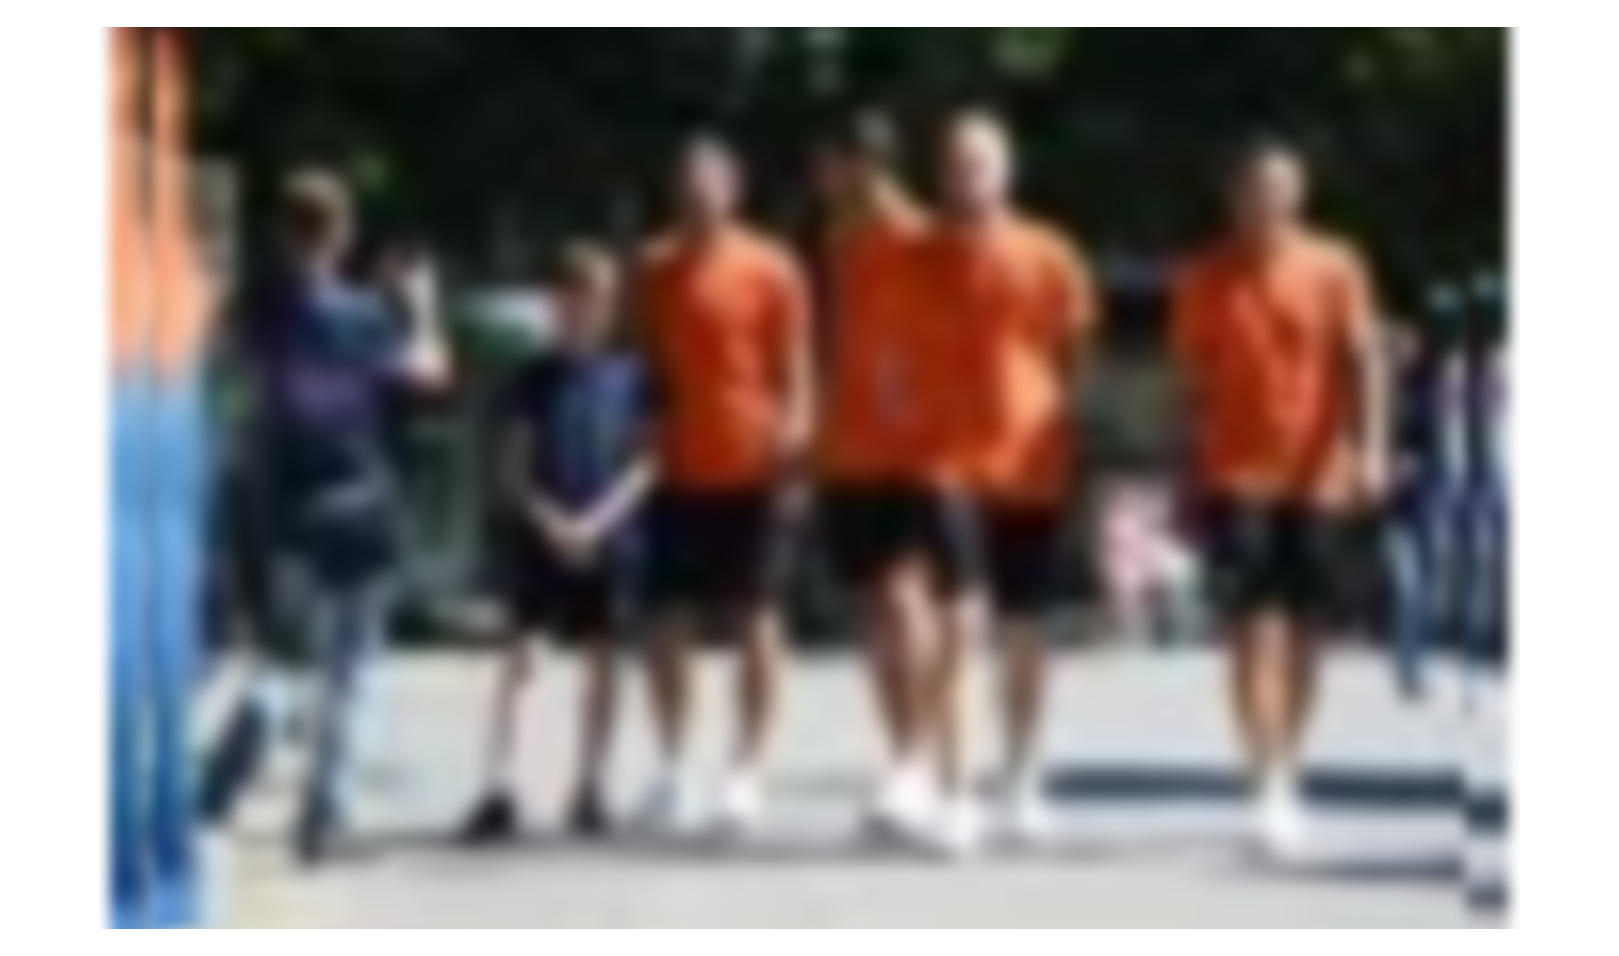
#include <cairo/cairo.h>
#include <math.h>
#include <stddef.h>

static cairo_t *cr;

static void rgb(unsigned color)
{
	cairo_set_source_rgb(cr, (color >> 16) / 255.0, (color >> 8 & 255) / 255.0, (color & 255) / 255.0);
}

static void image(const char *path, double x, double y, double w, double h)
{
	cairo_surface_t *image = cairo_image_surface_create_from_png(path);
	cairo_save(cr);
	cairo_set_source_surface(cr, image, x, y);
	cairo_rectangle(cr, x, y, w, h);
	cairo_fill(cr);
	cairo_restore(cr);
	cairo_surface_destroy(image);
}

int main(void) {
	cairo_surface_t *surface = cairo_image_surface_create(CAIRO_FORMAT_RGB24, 1619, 956);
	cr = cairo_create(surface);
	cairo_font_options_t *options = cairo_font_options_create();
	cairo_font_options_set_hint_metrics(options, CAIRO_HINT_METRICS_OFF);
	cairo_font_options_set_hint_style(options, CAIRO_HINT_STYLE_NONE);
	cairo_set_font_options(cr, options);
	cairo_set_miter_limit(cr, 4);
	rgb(0xffffff);
	cairo_paint(cr);
	image("img/1.png", 99, 27, 1421, 902);
	cairo_surface_write_to_png(surface, "page.png");
	cairo_font_options_destroy(options);
	cairo_destroy(cr);
	cairo_surface_destroy(surface);
	return 0;
}
